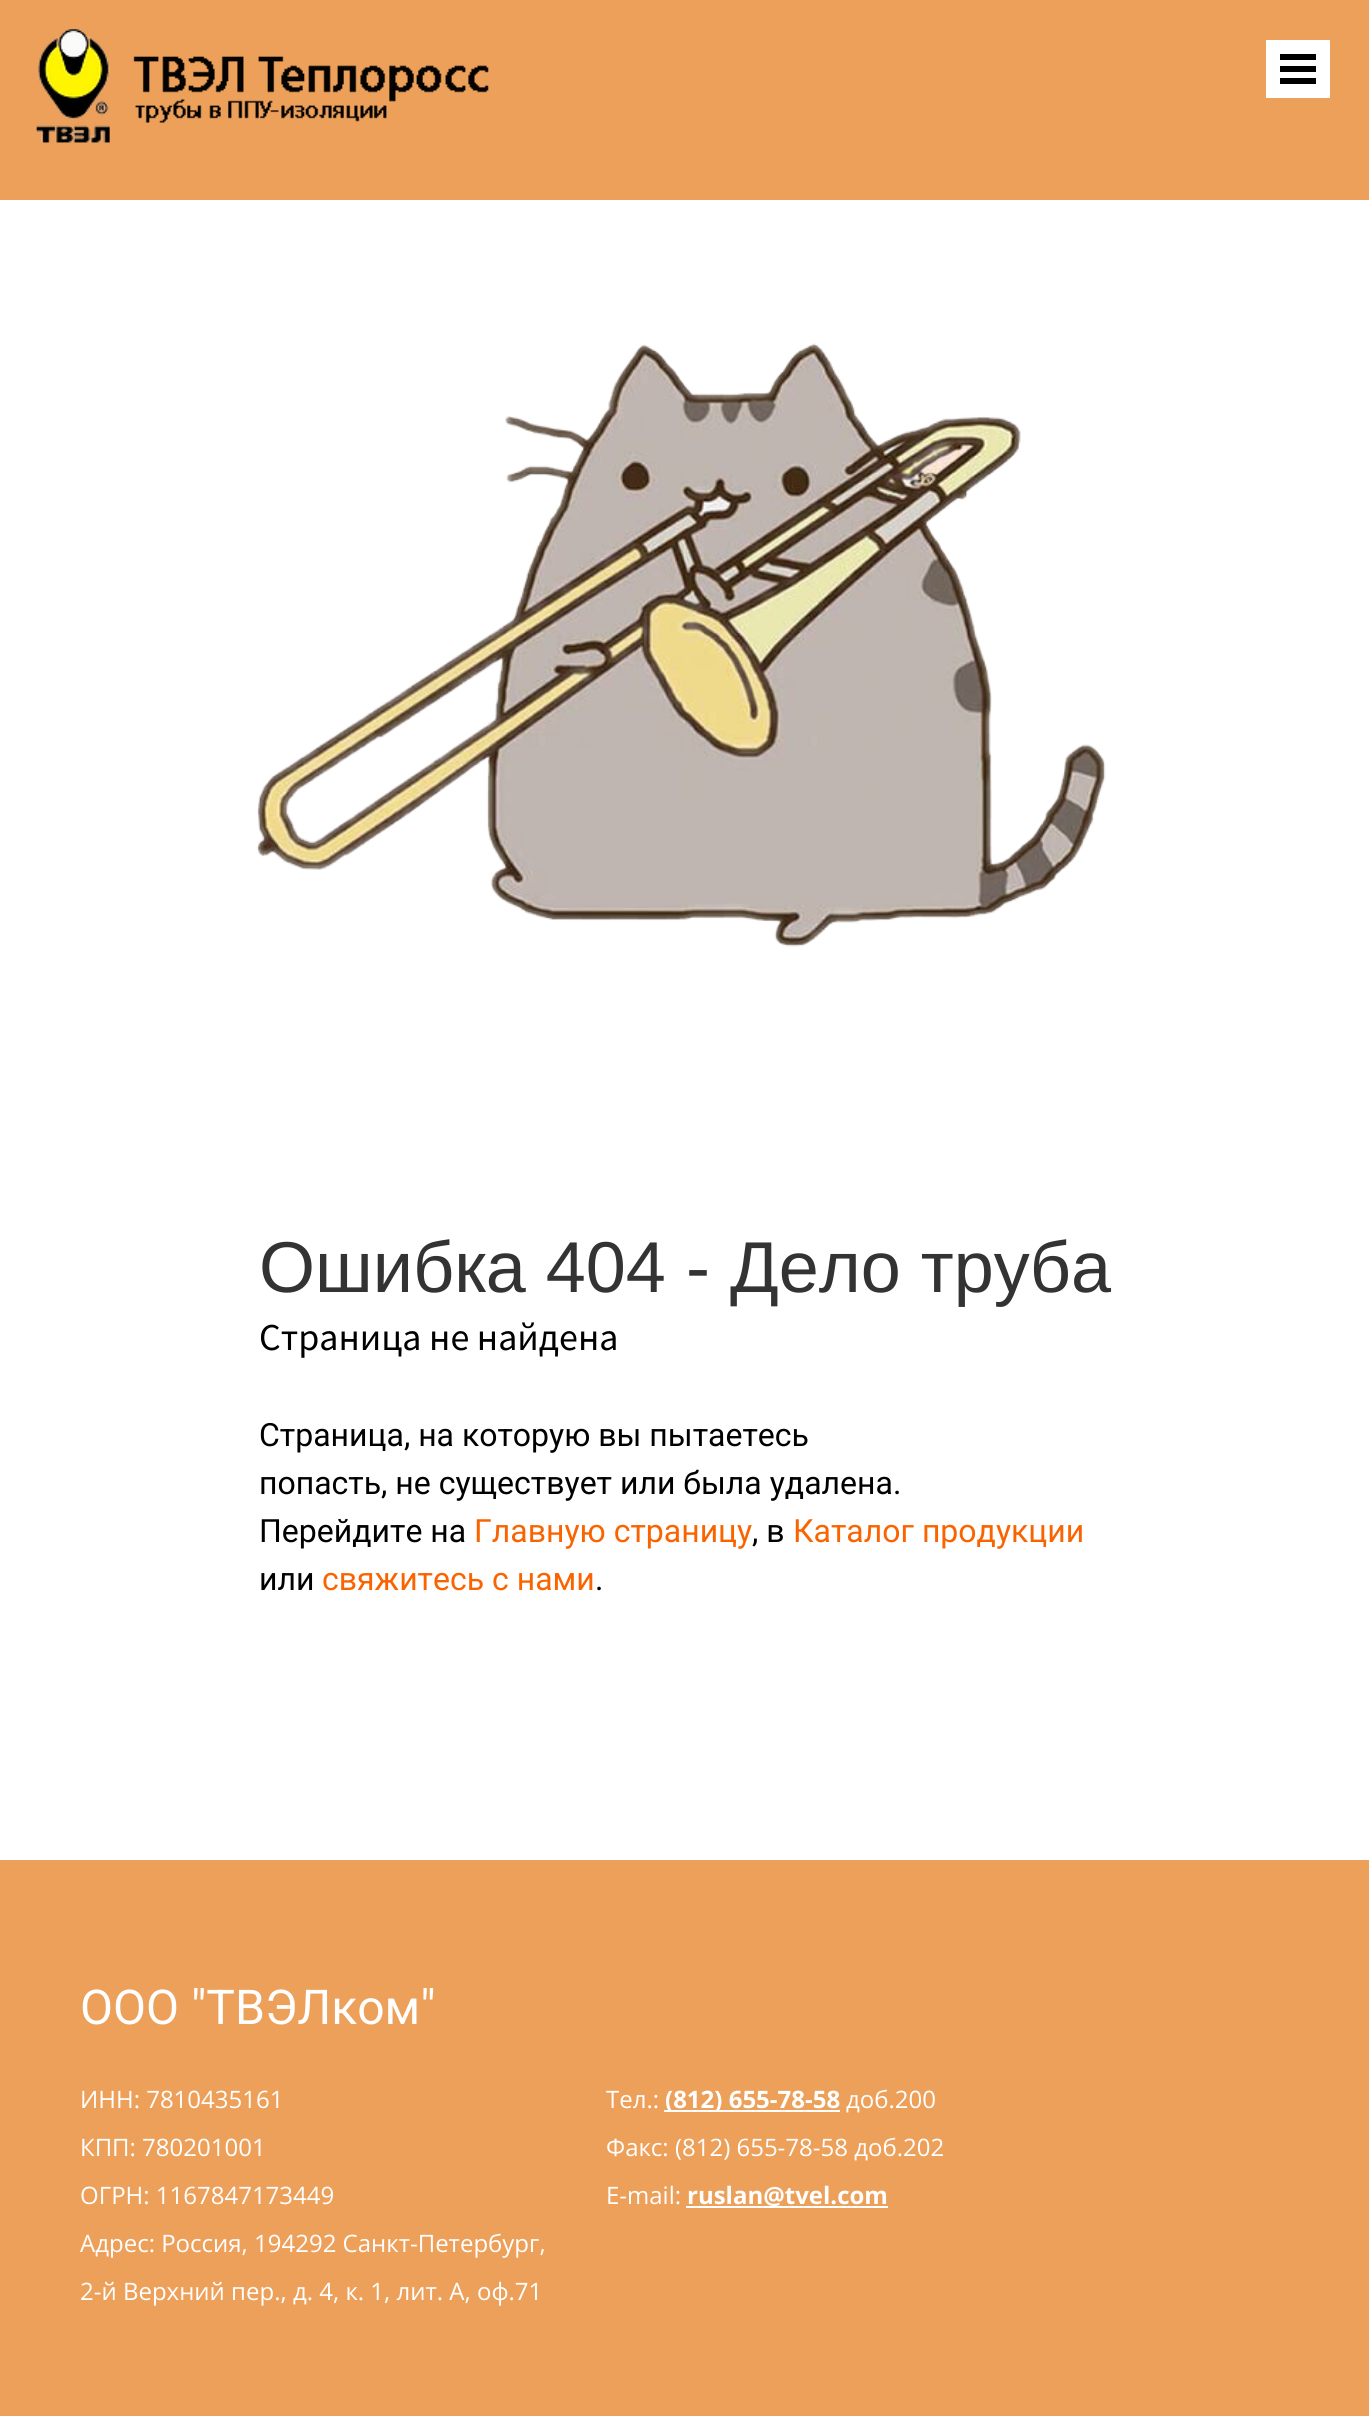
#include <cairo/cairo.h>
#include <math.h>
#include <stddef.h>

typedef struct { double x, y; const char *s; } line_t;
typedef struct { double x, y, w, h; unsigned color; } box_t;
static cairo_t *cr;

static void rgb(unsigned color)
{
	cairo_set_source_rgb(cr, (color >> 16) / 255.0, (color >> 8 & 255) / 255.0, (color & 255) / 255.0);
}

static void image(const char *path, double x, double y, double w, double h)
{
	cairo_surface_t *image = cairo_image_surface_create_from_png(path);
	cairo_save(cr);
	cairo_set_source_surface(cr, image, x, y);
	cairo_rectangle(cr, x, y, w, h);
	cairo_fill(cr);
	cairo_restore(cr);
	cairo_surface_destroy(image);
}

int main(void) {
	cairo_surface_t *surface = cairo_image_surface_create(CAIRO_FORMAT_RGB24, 1369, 2416);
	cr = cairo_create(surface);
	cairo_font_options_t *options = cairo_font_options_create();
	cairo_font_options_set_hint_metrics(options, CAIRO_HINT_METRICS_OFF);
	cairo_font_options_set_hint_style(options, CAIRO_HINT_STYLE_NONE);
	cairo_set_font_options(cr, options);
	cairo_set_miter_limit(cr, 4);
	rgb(0xffffff);
	cairo_paint(cr);
	rgb(0xeda05a);
	cairo_rectangle(cr, 0, 0, 1369, 200);
	cairo_fill(cr);
	image("img/1.png", 36, 29, 453, 114);
	{
		static const box_t items[] = {
			{1266, 40, 64, 58, 0xffffff},
			{1280, 54, 36, 6, 0x000000},
			{1280, 66, 36, 6, 0x000000},
			{1280, 78, 36, 6, 0x000000},
		};
		for (size_t i = 0; i < sizeof items / sizeof *items; i++) {
			rgb(items[i].color);
			cairo_rectangle(cr, items[i].x, items[i].y, items[i].w, items[i].h);
			cairo_fill(cr);
		}
	}
	image("img/2.png", 256, 343, 850, 604);
	{
		static const box_t items[] = {
			{0, 1860, 1369, 556, 0xeda05a},
			{664, 2110, 176, 2, 0xffffff},
			{686, 2206, 202, 2, 0xffffff},
		};
		for (size_t i = 0; i < sizeof items / sizeof *items; i++) {
			rgb(items[i].color);
			cairo_rectangle(cr, items[i].x, items[i].y, items[i].w, items[i].h);
			cairo_fill(cr);
		}
	}
	cairo_select_font_face(cr, "Liberation Sans", CAIRO_FONT_SLANT_NORMAL, CAIRO_FONT_WEIGHT_NORMAL);
	cairo_set_font_size(cr, 72);
	rgb(0x333333);
	cairo_move_to(cr, 259, 1292);
	cairo_show_text(cr, "Ошибка 404 - Дело труба");
	cairo_select_font_face(cr, "Source Sans Pro", CAIRO_FONT_SLANT_NORMAL, CAIRO_FONT_WEIGHT_NORMAL);
	cairo_set_font_size(cr, 38);
	rgb(0x000000);
	cairo_move_to(cr, 259, 1350);
	cairo_show_text(cr, "Страница не найдена");
	cairo_select_font_face(cr, "Roboto", CAIRO_FONT_SLANT_NORMAL, CAIRO_FONT_WEIGHT_NORMAL);
	cairo_set_font_size(cr, 32);
	{
		static const line_t items[] = {
			{259, 1446, "Страница, на которую вы пытаетесь"},
			{259, 1494, "попасть, не существует или была удалена."},
			{259, 1542, "Перейдите на"},
		};
		for (size_t i = 0; i < sizeof items / sizeof *items; i++) {
			cairo_move_to(cr, items[i].x, items[i].y);
			cairo_show_text(cr, items[i].s);
		}
	}
	rgb(0xfa6400);
	cairo_move_to(cr, 474, 1542);
	cairo_show_text(cr, "Главную страницу");
	rgb(0x000000);
	cairo_move_to(cr, 752, 1542);
	cairo_show_text(cr, ", в");
	rgb(0xfa6400);
	cairo_move_to(cr, 793, 1542);
	cairo_show_text(cr, "Каталог продукции");
	rgb(0x000000);
	cairo_move_to(cr, 259, 1590);
	cairo_show_text(cr, "или");
	rgb(0xfa6400);
	cairo_move_to(cr, 322, 1590);
	cairo_show_text(cr, "свяжитесь с нами");
	rgb(0x000000);
	cairo_move_to(cr, 595, 1590);
	cairo_show_text(cr, ".");
	cairo_set_font_size(cr, 48);
	rgb(0xffffff);
	cairo_move_to(cr, 80, 2024);
	cairo_show_text(cr, "ООО \"ТВЭЛком\"");
	cairo_select_font_face(cr, "Open Sans", CAIRO_FONT_SLANT_NORMAL, CAIRO_FONT_WEIGHT_NORMAL);
	cairo_set_font_size(cr, 24);
	{
		static const line_t items[] = {
			{80, 2108, "ИНН: 7810435161"},
			{80, 2156, "КПП: 780201001"},
			{80, 2204, "ОГРН: 1167847173449"},
			{80, 2252, "Адрес: Россия, 194292 Санкт-Петербург,"},
			{80, 2300, "2-й Верхний пер., д. 4, к. 1, лит. А, оф.71"},
			{606, 2108, "Тел.:"},
		};
		for (size_t i = 0; i < sizeof items / sizeof *items; i++) {
			cairo_move_to(cr, items[i].x, items[i].y);
			cairo_show_text(cr, items[i].s);
		}
	}
	cairo_select_font_face(cr, "Open Sans", CAIRO_FONT_SLANT_NORMAL, CAIRO_FONT_WEIGHT_BOLD);
	cairo_move_to(cr, 665, 2108);
	cairo_show_text(cr, "(812) 655-78-58");
	cairo_select_font_face(cr, "Open Sans", CAIRO_FONT_SLANT_NORMAL, CAIRO_FONT_WEIGHT_NORMAL);
	{
		static const line_t items[] = {
			{846, 2108, "доб.200"},
			{606, 2156, "Факс: (812) 655-78-58 доб.202"},
			{606, 2204, "E-mail:"},
		};
		for (size_t i = 0; i < sizeof items / sizeof *items; i++) {
			cairo_move_to(cr, items[i].x, items[i].y);
			cairo_show_text(cr, items[i].s);
		}
	}
	cairo_select_font_face(cr, "Open Sans", CAIRO_FONT_SLANT_NORMAL, CAIRO_FONT_WEIGHT_BOLD);
	cairo_move_to(cr, 687, 2204);
	cairo_show_text(cr, "ruslan@tvel.com");
	cairo_surface_write_to_png(surface, "page.png");
	cairo_font_options_destroy(options);
	cairo_destroy(cr);
	cairo_surface_destroy(surface);
	return 0;
}
